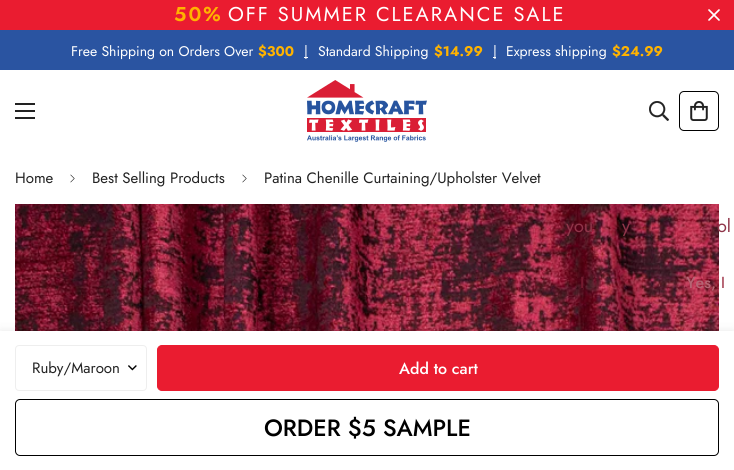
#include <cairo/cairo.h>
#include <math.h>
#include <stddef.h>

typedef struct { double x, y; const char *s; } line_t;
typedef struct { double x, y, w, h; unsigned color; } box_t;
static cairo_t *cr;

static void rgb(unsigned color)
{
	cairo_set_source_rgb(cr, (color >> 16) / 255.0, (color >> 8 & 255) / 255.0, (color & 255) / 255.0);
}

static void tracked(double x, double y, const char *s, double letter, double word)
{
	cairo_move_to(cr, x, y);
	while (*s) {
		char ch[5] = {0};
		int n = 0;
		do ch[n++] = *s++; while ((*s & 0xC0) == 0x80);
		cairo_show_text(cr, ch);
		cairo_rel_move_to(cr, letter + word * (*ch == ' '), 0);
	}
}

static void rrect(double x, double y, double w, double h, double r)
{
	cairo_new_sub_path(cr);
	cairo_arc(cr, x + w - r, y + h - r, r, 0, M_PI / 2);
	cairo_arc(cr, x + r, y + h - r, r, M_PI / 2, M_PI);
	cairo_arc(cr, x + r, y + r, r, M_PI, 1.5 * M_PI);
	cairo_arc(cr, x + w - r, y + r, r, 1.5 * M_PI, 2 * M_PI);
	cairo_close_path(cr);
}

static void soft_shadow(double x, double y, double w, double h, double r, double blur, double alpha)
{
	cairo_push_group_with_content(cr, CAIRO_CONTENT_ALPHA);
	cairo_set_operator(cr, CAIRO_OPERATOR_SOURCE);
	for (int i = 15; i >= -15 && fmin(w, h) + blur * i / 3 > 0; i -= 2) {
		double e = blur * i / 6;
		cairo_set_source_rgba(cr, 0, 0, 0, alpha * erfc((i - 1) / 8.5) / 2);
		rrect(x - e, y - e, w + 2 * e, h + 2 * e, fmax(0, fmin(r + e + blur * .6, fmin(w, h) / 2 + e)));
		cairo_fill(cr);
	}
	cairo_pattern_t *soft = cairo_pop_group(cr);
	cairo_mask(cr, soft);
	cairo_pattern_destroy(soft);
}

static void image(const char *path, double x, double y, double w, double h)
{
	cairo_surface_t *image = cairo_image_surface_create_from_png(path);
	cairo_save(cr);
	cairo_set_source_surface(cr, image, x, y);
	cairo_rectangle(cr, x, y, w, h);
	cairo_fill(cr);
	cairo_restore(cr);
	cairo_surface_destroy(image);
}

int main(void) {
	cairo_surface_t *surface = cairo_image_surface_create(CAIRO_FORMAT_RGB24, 734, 470);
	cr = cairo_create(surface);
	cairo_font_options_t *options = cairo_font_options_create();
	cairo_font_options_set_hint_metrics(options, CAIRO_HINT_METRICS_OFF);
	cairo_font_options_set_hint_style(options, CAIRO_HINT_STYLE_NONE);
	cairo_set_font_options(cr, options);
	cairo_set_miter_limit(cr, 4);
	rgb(0xffffff);
	cairo_paint(cr);
	rgb(0xea1c30);
	cairo_rectangle(cr, 0, 0, 734, 30);
	cairo_fill(cr);
	cairo_new_path(cr);
	cairo_move_to(cr, 709, 20);
	cairo_line_to(cr, 719, 10);
	cairo_move_to(cr, 709, 10);
	cairo_line_to(cr, 719, 20);
	rgb(0xffffff);
	cairo_set_line_width(cr, 1.7);
	cairo_set_line_cap(cr, CAIRO_LINE_CAP_ROUND);
	cairo_set_line_join(cr, CAIRO_LINE_JOIN_ROUND);
	cairo_stroke(cr);
	{
		static const box_t items[] = {
			{0, 30, 734, 40, 0x2a54a1},
			{304, 57, 4, 1, 0xffffff},
			{493, 57, 3, 1, 0xffffff},
			{15, 110, 20, 2, 0x222222},
			{15, 103, 20, 2, 0x222222},
			{15, 117, 20, 2, 0x222222},
		};
		for (size_t i = 0; i < sizeof items / sizeof *items; i++) {
			rgb(items[i].color);
			cairo_rectangle(cr, items[i].x, items[i].y, items[i].w, items[i].h);
			cairo_fill(cr);
		}
	}
	image("img/1.png", 307, 80, 120, 62);
	image("img/2.png", 649, 101, 20, 20);
	rrect(679.5, 91.5, 39, 39, 4.5);
	rgb(0x000000);
	cairo_set_line_width(cr, 1);
	cairo_set_line_cap(cr, CAIRO_LINE_CAP_BUTT);
	cairo_set_line_join(cr, CAIRO_LINE_JOIN_MITER);
	cairo_stroke(cr);
	image("img/3.png", 690, 101, 18, 20);
	image("img/4.png", 70, 174, 5, 9);
	image("img/4.png", 242, 174, 5, 9);
	image("img/5.png", 15, 204, 704, 127);
	rgb(0x000000);
	soft_shadow(0, 331, 734, 139, 0, 5, 0.09);
	rgb(0xffffff);
	cairo_rectangle(cr, 0, 331, 734, 139);
	cairo_fill(cr);
	image("img/6.png", 128, 365, 9, 6);
	rrect(15.5, 345.5, 131, 45, 3.5);
	rgb(0xeeeeee);
	cairo_stroke(cr);
	rgb(0xea1c30);
	rrect(157.5, 345.5, 561, 45, 4.5);
	cairo_fill_preserve(cr);
	cairo_stroke(cr);
	rrect(15.5, 399.5, 703, 56, 4.5);
	rgb(0x000000);
	cairo_stroke(cr);
	cairo_select_font_face(cr, "Jost SemiBold", CAIRO_FONT_SLANT_NORMAL, CAIRO_FONT_WEIGHT_NORMAL);
	cairo_set_font_size(cr, 20);
	rgb(0xffb300);
	tracked(174, 21, "50%", 2, 0);
	cairo_select_font_face(cr, "Jost", CAIRO_FONT_SLANT_NORMAL, CAIRO_FONT_WEIGHT_NORMAL);
	rgb(0xffffff);
	tracked(228, 21, "OFF SUMMER CLEARANCE SALE", 2, 0);
	cairo_set_font_size(cr, 14);
	cairo_move_to(cr, 71, 56);
	cairo_show_text(cr, "Free Shipping on Orders Over");
	cairo_select_font_face(cr, "Jost", CAIRO_FONT_SLANT_NORMAL, CAIRO_FONT_WEIGHT_BOLD);
	rgb(0xffb300);
	cairo_move_to(cr, 258, 56);
	cairo_show_text(cr, "$300");
	cairo_select_font_face(cr, "Jost", CAIRO_FONT_SLANT_NORMAL, CAIRO_FONT_WEIGHT_NORMAL);
	rgb(0xffffff);
	cairo_move_to(cr, 304, 56);
	cairo_show_text(cr, "|");
	cairo_move_to(cr, 318, 56);
	cairo_show_text(cr, "Standard Shipping");
	cairo_select_font_face(cr, "Jost", CAIRO_FONT_SLANT_NORMAL, CAIRO_FONT_WEIGHT_BOLD);
	rgb(0xffb300);
	cairo_move_to(cr, 434, 56);
	cairo_show_text(cr, "$14.99");
	cairo_select_font_face(cr, "Jost", CAIRO_FONT_SLANT_NORMAL, CAIRO_FONT_WEIGHT_NORMAL);
	rgb(0xffffff);
	cairo_move_to(cr, 493, 56);
	cairo_show_text(cr, "|");
	cairo_move_to(cr, 506, 56);
	cairo_show_text(cr, "Express shipping");
	cairo_select_font_face(cr, "Jost", CAIRO_FONT_SLANT_NORMAL, CAIRO_FONT_WEIGHT_BOLD);
	rgb(0xffb300);
	cairo_move_to(cr, 612, 56);
	cairo_show_text(cr, "$24.99");
	cairo_select_font_face(cr, "Jost", CAIRO_FONT_SLANT_NORMAL, CAIRO_FONT_WEIGHT_NORMAL);
	cairo_set_font_size(cr, 15);
	rgb(0x222222);
	{
		static const line_t items[] = {
			{15, 183, "Home"},
			{92, 183, "Best Selling Products"},
			{264, 183, "Patina Chenille Curtaining/Upholster Velvet"},
			{32, 373, "Ruby/Maroon"},
		};
		for (size_t i = 0; i < sizeof items / sizeof *items; i++) {
			cairo_move_to(cr, items[i].x, items[i].y);
			cairo_show_text(cr, items[i].s);
		}
	}
	cairo_select_font_face(cr, "Jost Medium", CAIRO_FONT_SLANT_NORMAL, CAIRO_FONT_WEIGHT_NORMAL);
	cairo_set_font_size(cr, 16);
	rgb(0xffffff);
	cairo_move_to(cr, 399, 374);
	cairo_show_text(cr, "Add to cart");
	cairo_set_font_size(cr, 23.5);
	rgb(0x000000);
	cairo_move_to(cr, 264, 436);
	cairo_show_text(cr, "ORDER $5 SAMPLE");
	cairo_select_font_face(cr, "Jost", CAIRO_FONT_SLANT_NORMAL, CAIRO_FONT_WEIGHT_NORMAL);
	cairo_set_font_size(cr, 18);
	rgb(0x8f3549);
	{
		static const line_t items[] = {
			{566, 232, "you"},
			{622, 232, "y"},
			{717, 232, "ol"},
		};
		for (size_t i = 0; i < sizeof items / sizeof *items; i++) {
			cairo_move_to(cr, items[i].x, items[i].y);
			cairo_show_text(cr, items[i].s);
		}
	}
	cairo_select_font_face(cr, "Jost Medium", CAIRO_FONT_SLANT_NORMAL, CAIRO_FONT_WEIGHT_NORMAL);
	cairo_set_font_size(cr, 16);
	rgb(0x731b2f);
	cairo_move_to(cr, 580, 288);
	cairo_show_text(cr, "I");
	rgb(0xb66574);
	cairo_move_to(cr, 686, 288);
	cairo_show_text(cr, "Yes, I");
	cairo_surface_write_to_png(surface, "page.png");
	cairo_font_options_destroy(options);
	cairo_destroy(cr);
	cairo_surface_destroy(surface);
	return 0;
}
